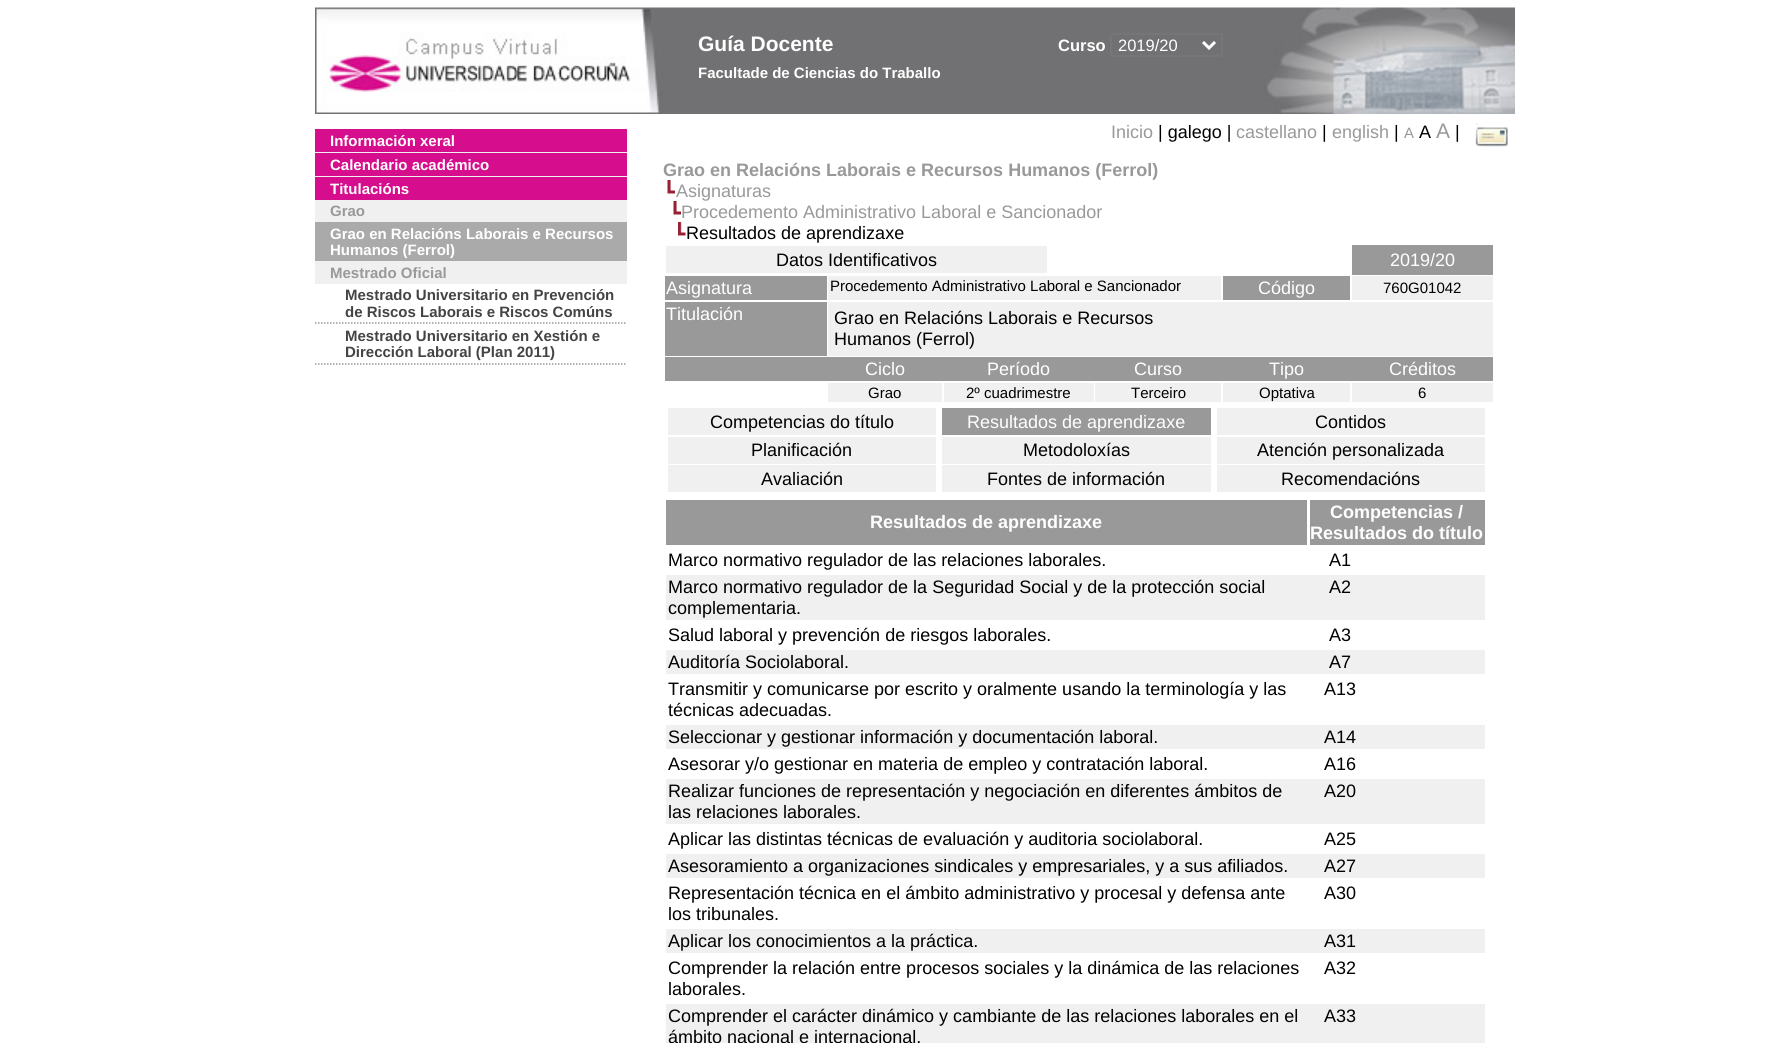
#include <cairo/cairo.h>
#include <math.h>
#include <stddef.h>

typedef struct { double x, y; const char *s; } line_t;
typedef struct { double x, y, w, h; unsigned color; } box_t;
static cairo_t *cr;

static void rgb(unsigned color)
{
	cairo_set_source_rgb(cr, (color >> 16) / 255.0, (color >> 8 & 255) / 255.0, (color & 255) / 255.0);
}

static void rrect(double x, double y, double w, double h, double r)
{
	cairo_new_sub_path(cr);
	cairo_arc(cr, x + w - r, y + h - r, r, 0, M_PI / 2);
	cairo_arc(cr, x + r, y + h - r, r, M_PI / 2, M_PI);
	cairo_arc(cr, x + r, y + r, r, M_PI, 1.5 * M_PI);
	cairo_arc(cr, x + w - r, y + r, r, 1.5 * M_PI, 2 * M_PI);
	cairo_close_path(cr);
}

static void image(const char *path, double x, double y, double w, double h)
{
	cairo_surface_t *image = cairo_image_surface_create_from_png(path);
	cairo_save(cr);
	cairo_set_source_surface(cr, image, x, y);
	cairo_rectangle(cr, x, y, w, h);
	cairo_fill(cr);
	cairo_restore(cr);
	cairo_surface_destroy(image);
}

int main(void) {
	cairo_surface_t *surface = cairo_image_surface_create(CAIRO_FORMAT_RGB24, 1771, 1043);
	cr = cairo_create(surface);
	cairo_font_options_t *options = cairo_font_options_create();
	cairo_font_options_set_hint_metrics(options, CAIRO_HINT_METRICS_OFF);
	cairo_font_options_set_hint_style(options, CAIRO_HINT_STYLE_NONE);
	cairo_set_font_options(cr, options);
	cairo_set_miter_limit(cr, 4);
	rgb(0xffffff);
	cairo_paint(cr);
	image("img/1.png", 315, 7, 1200, 107);
	rrect(1111, 34, 111, 22, 2);
	rgb(0x767676);
	cairo_stroke(cr);
	cairo_new_path(cr);
	cairo_move_to(cr, 1203, 42);
	cairo_line_to(cr, 1209, 48);
	cairo_line_to(cr, 1215, 42);
	rgb(0xffffff);
	cairo_set_line_width(cr, 3);
	cairo_stroke(cr);
	image("img/2.png", 1475, 123, 33, 24);
	{
		static const box_t items[] = {
			{315, 152, 312, 132, 0xf0f0f0},
			{315, 129, 312, 23, 0xd60d8c},
			{315, 153, 312, 23, 0xd60d8c},
			{315, 177, 312, 23, 0xd60d8c},
			{315, 222, 312, 39, 0xaaaaaa},
		};
		for (size_t i = 0; i < sizeof items / sizeof *items; i++) {
			rgb(items[i].color);
			cairo_rectangle(cr, items[i].x, items[i].y, items[i].w, items[i].h);
			cairo_fill(cr);
		}
	}
	cairo_new_path(cr);
	cairo_move_to(cr, 315, 323);
	cairo_line_to(cr, 627, 323);
	rgb(0x999999);
	cairo_set_line_width(cr, 1.5);
	cairo_set_dash(cr, (double[]){1.5, 1.5}, 2, 0);
	cairo_stroke(cr);
	cairo_new_path(cr);
	cairo_move_to(cr, 315, 364);
	cairo_line_to(cr, 627, 364);
	cairo_stroke(cr);
	image("img/3.png", 667, 180, 8, 14);
	image("img/3.png", 673, 201, 8, 14);
	image("img/4.png", 678, 222, 8, 14);
	{
		static const box_t items[] = {
			{666, 246, 381, 27, 0xf0f0f0},
			{1352, 245, 141, 30, 0x999999},
			{665, 276, 162, 24, 0x999999},
			{828, 276, 393, 24, 0xf0f0f0},
			{1223, 276, 127, 24, 0x999999},
			{1352, 276, 141, 24, 0xf0f0f0},
			{665, 302, 162, 54, 0x999999},
			{828, 302, 665, 54, 0xf0f0f0},
			{665, 357, 828, 24, 0x999999},
			{828, 383, 114, 19, 0xf0f0f0},
			{944, 383, 150, 19, 0xf0f0f0},
			{1095, 383, 126, 19, 0xf0f0f0},
			{1223, 383, 127, 19, 0xf0f0f0},
			{1352, 383, 141, 19, 0xf0f0f0},
			{668, 408, 268, 27, 0xf0f0f0},
			{942, 408, 269, 27, 0x999999},
			{1217, 408, 268, 27, 0xf0f0f0},
			{668, 437, 268, 27, 0xf0f0f0},
			{942, 437, 269, 27, 0xf0f0f0},
			{1217, 437, 268, 27, 0xf0f0f0},
			{668, 465, 268, 27, 0xf0f0f0},
			{942, 465, 269, 27, 0xf0f0f0},
			{1217, 465, 268, 27, 0xf0f0f0},
			{666, 500, 641, 45, 0x999999},
			{1310, 500, 175, 45, 0x999999},
			{666, 575, 819, 45, 0xf0f0f0},
			{666, 650, 819, 24, 0xf0f0f0},
			{666, 725, 819, 24, 0xf0f0f0},
			{666, 779, 819, 45, 0xf0f0f0},
			{666, 854, 819, 24, 0xf0f0f0},
			{666, 929, 819, 24, 0xf0f0f0},
			{666, 1004, 819, 39, 0xf0f0f0},
		};
		for (size_t i = 0; i < sizeof items / sizeof *items; i++) {
			rgb(items[i].color);
			cairo_rectangle(cr, items[i].x, items[i].y, items[i].w, items[i].h);
			cairo_fill(cr);
		}
	}
	cairo_select_font_face(cr, "Liberation Sans", CAIRO_FONT_SLANT_NORMAL, CAIRO_FONT_WEIGHT_BOLD);
	cairo_set_font_size(cr, 21);
	rgb(0xffffff);
	cairo_move_to(cr, 698, 51);
	cairo_show_text(cr, "Guía Docente");
	cairo_set_font_size(cr, 16.5);
	cairo_move_to(cr, 1058, 51);
	cairo_show_text(cr, "Curso");
	cairo_select_font_face(cr, "Liberation Sans", CAIRO_FONT_SLANT_NORMAL, CAIRO_FONT_WEIGHT_NORMAL);
	cairo_move_to(cr, 1118, 51);
	cairo_show_text(cr, "2019/20");
	cairo_select_font_face(cr, "Liberation Sans", CAIRO_FONT_SLANT_NORMAL, CAIRO_FONT_WEIGHT_BOLD);
	cairo_set_font_size(cr, 15);
	cairo_move_to(cr, 698, 78);
	cairo_show_text(cr, "Facultade de Ciencias do Traballo");
	cairo_select_font_face(cr, "Liberation Sans", CAIRO_FONT_SLANT_NORMAL, CAIRO_FONT_WEIGHT_NORMAL);
	cairo_set_font_size(cr, 18);
	rgb(0x999999);
	cairo_move_to(cr, 1111, 138);
	cairo_show_text(cr, "Inicio");
	rgb(0x000000);
	cairo_move_to(cr, 1158, 138);
	cairo_show_text(cr, "| galego |");
	rgb(0x999999);
	cairo_move_to(cr, 1236, 138);
	cairo_show_text(cr, "castellano");
	rgb(0x000000);
	cairo_move_to(cr, 1322, 138);
	cairo_show_text(cr, "|");
	rgb(0x999999);
	cairo_move_to(cr, 1332, 138);
	cairo_show_text(cr, "english");
	rgb(0x000000);
	cairo_move_to(cr, 1394, 138);
	cairo_show_text(cr, "|");
	cairo_set_font_size(cr, 15);
	rgb(0x999999);
	cairo_move_to(cr, 1404, 138);
	cairo_show_text(cr, "A");
	cairo_set_font_size(cr, 18);
	rgb(0x000000);
	cairo_move_to(cr, 1419, 138);
	cairo_show_text(cr, "A");
	cairo_set_font_size(cr, 21);
	rgb(0x999999);
	cairo_move_to(cr, 1436, 138);
	cairo_show_text(cr, "A");
	cairo_set_font_size(cr, 18);
	rgb(0x000000);
	cairo_move_to(cr, 1455, 138);
	cairo_show_text(cr, "|");
	cairo_select_font_face(cr, "Liberation Sans", CAIRO_FONT_SLANT_NORMAL, CAIRO_FONT_WEIGHT_BOLD);
	cairo_set_font_size(cr, 15);
	rgb(0xffffff);
	{
		static const line_t items[] = {
			{330, 146, "Información xeral"},
			{330, 170, "Calendario académico"},
			{330, 194, "Titulacións"},
		};
		for (size_t i = 0; i < sizeof items / sizeof *items; i++) {
			cairo_move_to(cr, items[i].x, items[i].y);
			cairo_show_text(cr, items[i].s);
		}
	}
	rgb(0x999999);
	cairo_move_to(cr, 330, 216);
	cairo_show_text(cr, "Grao");
	rgb(0xffffff);
	cairo_move_to(cr, 330, 239);
	cairo_show_text(cr, "Grao en Relacións Laborais e Recursos");
	cairo_move_to(cr, 330, 255);
	cairo_show_text(cr, "Humanos (Ferrol)");
	rgb(0x999999);
	cairo_move_to(cr, 330, 278);
	cairo_show_text(cr, "Mestrado Oficial");
	rgb(0x444444);
	{
		static const line_t items[] = {
			{345, 300, "Mestrado Universitario en Prevención"},
			{345, 317, "de Riscos Laborais e Riscos Comúns"},
			{345, 341, "Mestrado Universitario en Xestión e"},
			{345, 357, "Dirección Laboral (Plan 2011)"},
		};
		for (size_t i = 0; i < sizeof items / sizeof *items; i++) {
			cairo_move_to(cr, items[i].x, items[i].y);
			cairo_show_text(cr, items[i].s);
		}
	}
	cairo_set_font_size(cr, 18);
	rgb(0x999999);
	cairo_move_to(cr, 663, 176);
	cairo_show_text(cr, "Grao en Relacións Laborais e Recursos Humanos (Ferrol)");
	cairo_select_font_face(cr, "Liberation Sans", CAIRO_FONT_SLANT_NORMAL, CAIRO_FONT_WEIGHT_NORMAL);
	cairo_move_to(cr, 676, 197);
	cairo_show_text(cr, "Asignaturas");
	cairo_move_to(cr, 681, 218);
	cairo_show_text(cr, "Procedemento Administrativo Laboral e Sancionador");
	rgb(0x000000);
	cairo_move_to(cr, 686, 239);
	cairo_show_text(cr, "Resultados de aprendizaxe");
	cairo_move_to(cr, 776, 266);
	cairo_show_text(cr, "Datos Identificativos");
	rgb(0xffffff);
	cairo_move_to(cr, 1390, 266);
	cairo_show_text(cr, "2019/20");
	cairo_move_to(cr, 666, 294);
	cairo_show_text(cr, "Asignatura");
	cairo_set_font_size(cr, 15);
	rgb(0x000000);
	cairo_move_to(cr, 830, 291);
	cairo_show_text(cr, "Procedemento Administrativo Laboral e Sancionador");
	cairo_set_font_size(cr, 18);
	rgb(0xffffff);
	cairo_move_to(cr, 1258, 294);
	cairo_show_text(cr, "Código");
	cairo_set_font_size(cr, 15);
	rgb(0x000000);
	cairo_move_to(cr, 1383, 293);
	cairo_show_text(cr, "760G01042");
	cairo_set_font_size(cr, 18);
	rgb(0xffffff);
	cairo_move_to(cr, 666, 320);
	cairo_show_text(cr, "Titulación");
	rgb(0x000000);
	cairo_move_to(cr, 834, 324);
	cairo_show_text(cr, "Grao en Relacións Laborais e Recursos");
	cairo_move_to(cr, 834, 345);
	cairo_show_text(cr, "Humanos (Ferrol)");
	rgb(0xffffff);
	{
		static const line_t items[] = {
			{865, 375, "Ciclo"},
			{987, 375, "Período"},
			{1134, 375, "Curso"},
			{1269, 375, "Tipo"},
			{1389, 375, "Créditos"},
		};
		for (size_t i = 0; i < sizeof items / sizeof *items; i++) {
			cairo_move_to(cr, items[i].x, items[i].y);
			cairo_show_text(cr, items[i].s);
		}
	}
	cairo_set_font_size(cr, 15);
	rgb(0x000000);
	{
		static const line_t items[] = {
			{868, 398, "Grao"},
			{966, 398, "2º cuadrimestre"},
			{1131, 398, "Terceiro"},
			{1259, 398, "Optativa"},
			{1418, 398, "6"},
		};
		for (size_t i = 0; i < sizeof items / sizeof *items; i++) {
			cairo_move_to(cr, items[i].x, items[i].y);
			cairo_show_text(cr, items[i].s);
		}
	}
	cairo_set_font_size(cr, 18);
	cairo_move_to(cr, 710, 428);
	cairo_show_text(cr, "Competencias do título");
	rgb(0xffffff);
	cairo_move_to(cr, 967, 428);
	cairo_show_text(cr, "Resultados de aprendizaxe");
	rgb(0x000000);
	{
		static const line_t items[] = {
			{1315, 428, "Contidos"},
			{751, 456, "Planificación"},
			{1023, 456, "Metodoloxías"},
			{1257, 456, "Atención personalizada"},
			{761, 485, "Avaliación"},
			{987, 485, "Fontes de información"},
			{1281, 485, "Recomendacións"},
		};
		for (size_t i = 0; i < sizeof items / sizeof *items; i++) {
			cairo_move_to(cr, items[i].x, items[i].y);
			cairo_show_text(cr, items[i].s);
		}
	}
	cairo_select_font_face(cr, "Liberation Sans", CAIRO_FONT_SLANT_NORMAL, CAIRO_FONT_WEIGHT_BOLD);
	rgb(0xffffff);
	{
		static const line_t items[] = {
			{870, 528, "Resultados de aprendizaxe"},
			{1330, 518, "Competencias /"},
			{1310, 539, "Resultados do título"},
		};
		for (size_t i = 0; i < sizeof items / sizeof *items; i++) {
			cairo_move_to(cr, items[i].x, items[i].y);
			cairo_show_text(cr, items[i].s);
		}
	}
	cairo_select_font_face(cr, "Liberation Sans", CAIRO_FONT_SLANT_NORMAL, CAIRO_FONT_WEIGHT_NORMAL);
	rgb(0x000000);
	{
		static const line_t items[] = {
			{668, 566, "Marco normativo regulador de las relaciones laborales."},
			{1329, 566, "A1"},
			{668, 593, "Marco normativo regulador de la Seguridad Social y de la protección social"},
			{668, 614, "complementaria."},
			{1329, 593, "A2"},
			{668, 641, "Salud laboral y prevención de riesgos laborales."},
			{1329, 641, "A3"},
			{668, 668, "Auditoría Sociolaboral."},
			{1329, 668, "A7"},
			{668, 695, "Transmitir y comunicarse por escrito y oralmente usando la terminología y las"},
			{668, 716, "técnicas adecuadas."},
			{1324, 695, "A13"},
			{668, 743, "Seleccionar y gestionar información y documentación laboral."},
			{1324, 743, "A14"},
			{668, 770, "Asesorar y/o gestionar en materia de empleo y contratación laboral."},
			{1324, 770, "A16"},
			{668, 797, "Realizar funciones de representación y negociación en diferentes ámbitos de"},
			{668, 818, "las relaciones laborales."},
			{1324, 797, "A20"},
			{668, 845, "Aplicar las distintas técnicas de evaluación y auditoria sociolaboral."},
			{1324, 845, "A25"},
			{668, 872, "Asesoramiento a organizaciones sindicales y empresariales, y a sus afiliados."},
			{1324, 872, "A27"},
			{668, 899, "Representación técnica en el ámbito administrativo y procesal y defensa ante"},
			{668, 920, "los tribunales."},
			{1324, 899, "A30"},
			{668, 947, "Aplicar los conocimientos a la práctica."},
			{1324, 947, "A31"},
			{668, 974, "Comprender la relación entre procesos sociales y la dinámica de las relaciones"},
			{668, 995, "laborales."},
			{1324, 974, "A32"},
			{668, 1022, "Comprender el carácter dinámico y cambiante de las relaciones laborales en el"},
			{668, 1043, "ámbito nacional e internacional."},
			{1324, 1022, "A33"},
		};
		for (size_t i = 0; i < sizeof items / sizeof *items; i++) {
			cairo_move_to(cr, items[i].x, items[i].y);
			cairo_show_text(cr, items[i].s);
		}
	}
	cairo_surface_write_to_png(surface, "page.png");
	cairo_font_options_destroy(options);
	cairo_destroy(cr);
	cairo_surface_destroy(surface);
	return 0;
}
